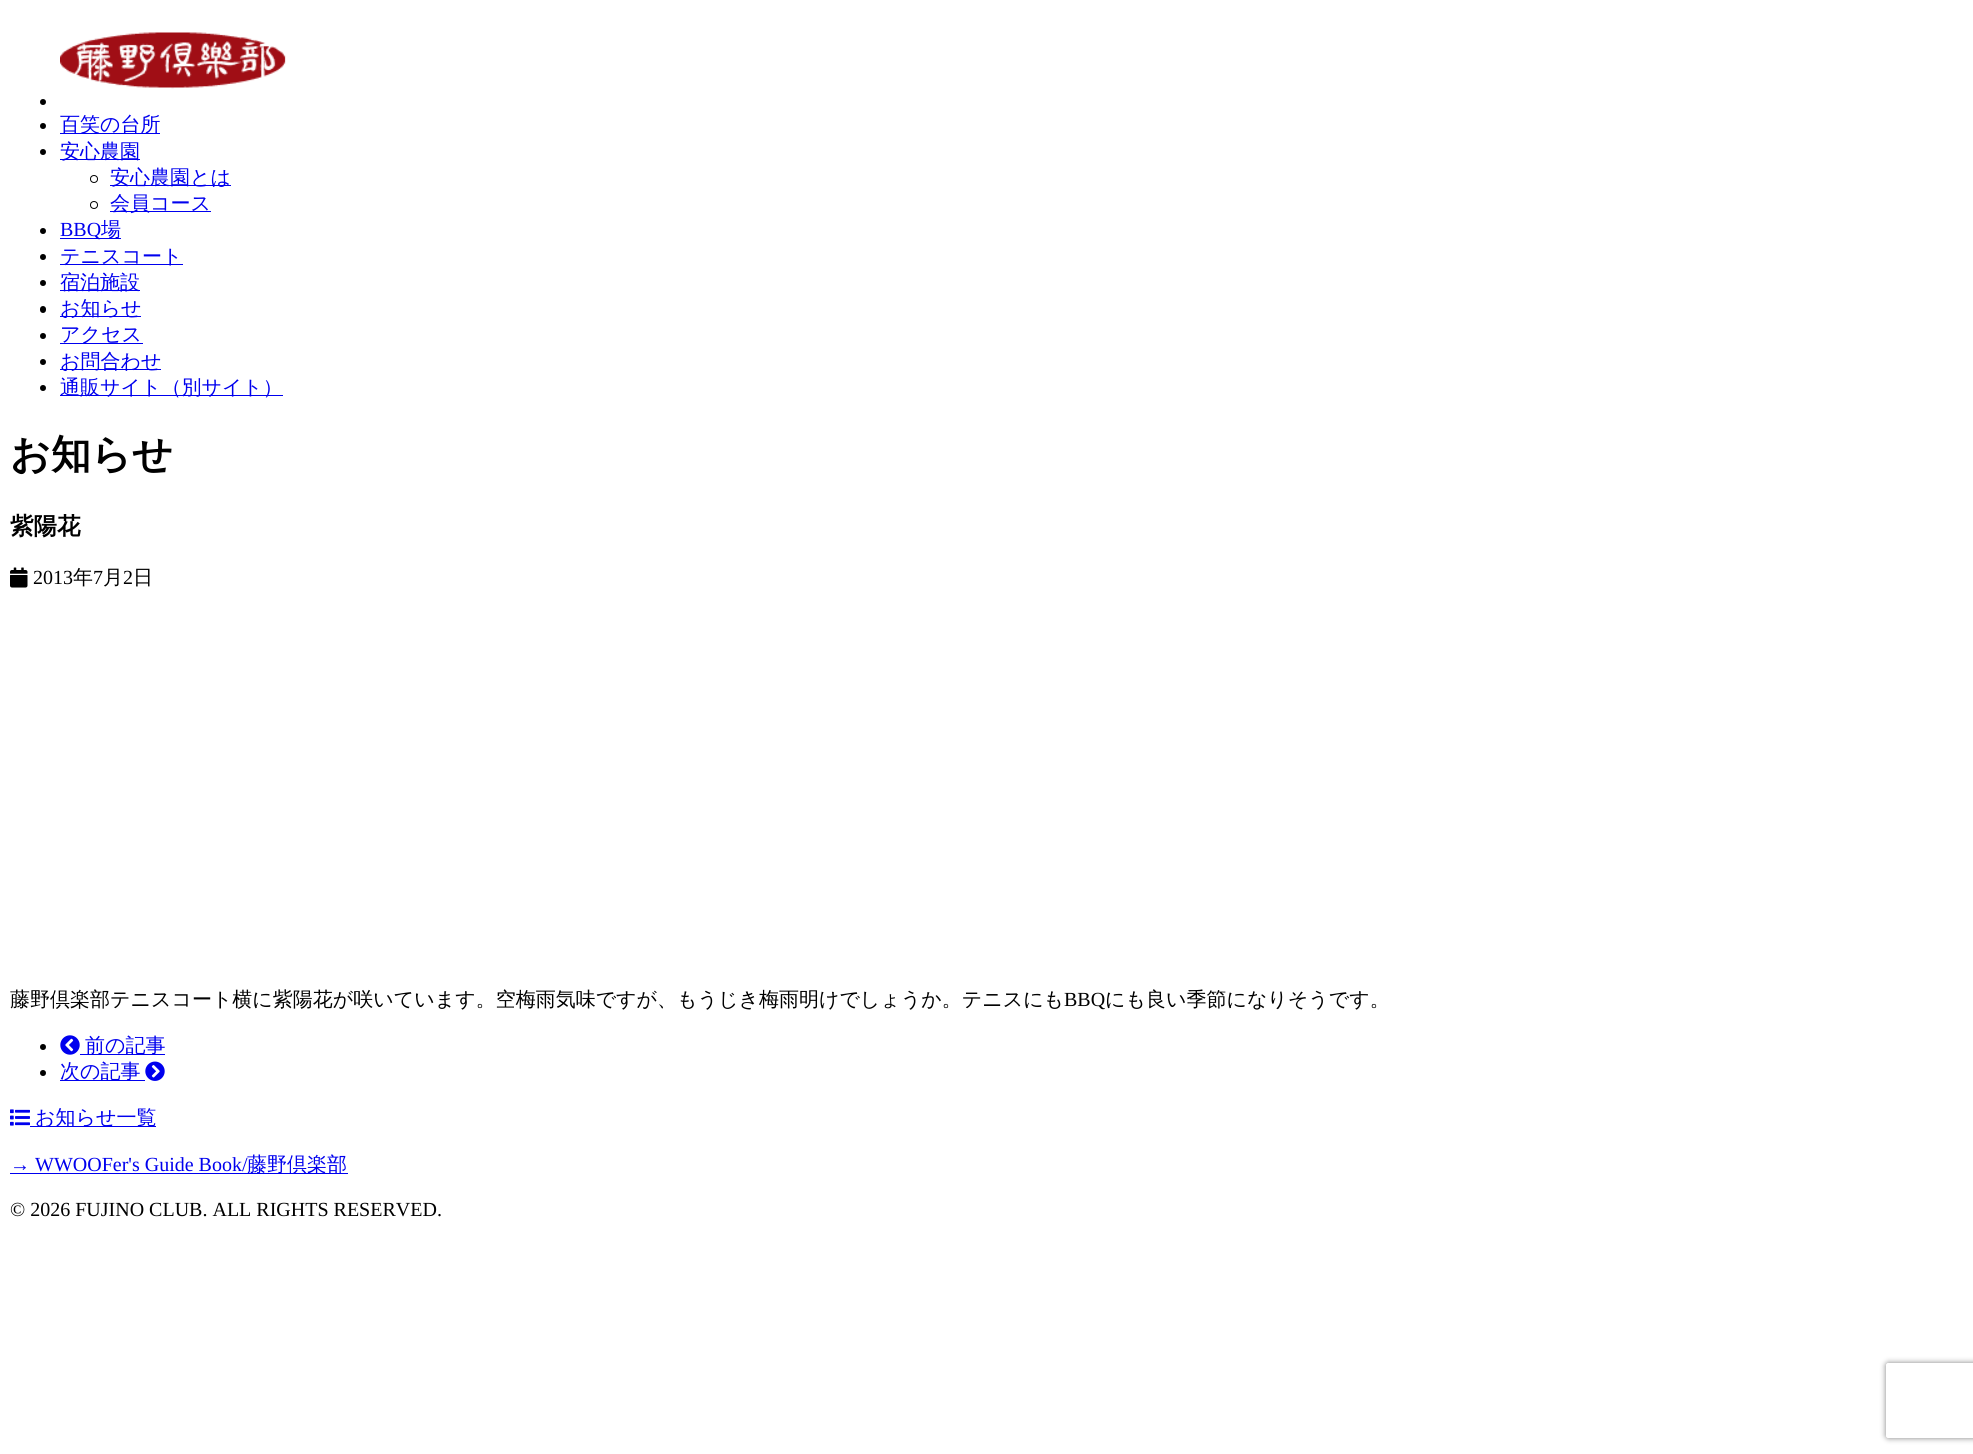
#include <cairo/cairo.h>
#include <math.h>
#include <stddef.h>

typedef struct { double x, y; const char *s; } line_t;
static cairo_t *cr;

static void rgb(unsigned color)
{
	cairo_set_source_rgb(cr, (color >> 16) / 255.0, (color >> 8 & 255) / 255.0, (color & 255) / 255.0);
}

static void rrect(double x, double y, double w, double h, double r)
{
	cairo_new_sub_path(cr);
	cairo_arc(cr, x + w - r, y + h - r, r, 0, M_PI / 2);
	cairo_arc(cr, x + r, y + h - r, r, M_PI / 2, M_PI);
	cairo_arc(cr, x + r, y + r, r, M_PI, 1.5 * M_PI);
	cairo_arc(cr, x + w - r, y + r, r, 1.5 * M_PI, 2 * M_PI);
	cairo_close_path(cr);
}

static void soft_shadow(double x, double y, double w, double h, double r, double blur, double alpha)
{
	cairo_push_group_with_content(cr, CAIRO_CONTENT_ALPHA);
	cairo_set_operator(cr, CAIRO_OPERATOR_SOURCE);
	for (int i = 15; i >= -15 && fmin(w, h) + blur * i / 3 > 0; i -= 2) {
		double e = blur * i / 6;
		cairo_set_source_rgba(cr, 0, 0, 0, alpha * erfc((i - 1) / 8.5) / 2);
		rrect(x - e, y - e, w + 2 * e, h + 2 * e, fmax(0, fmin(r + e + blur * .6, fmin(w, h) / 2 + e)));
		cairo_fill(cr);
	}
	cairo_pattern_t *soft = cairo_pop_group(cr);
	cairo_mask(cr, soft);
	cairo_pattern_destroy(soft);
}

static void image(const char *path, double x, double y, double w, double h)
{
	cairo_surface_t *image = cairo_image_surface_create_from_png(path);
	cairo_save(cr);
	cairo_set_source_surface(cr, image, x, y);
	cairo_rectangle(cr, x, y, w, h);
	cairo_fill(cr);
	cairo_restore(cr);
	cairo_surface_destroy(image);
}

int main(void) {
	cairo_surface_t *surface = cairo_image_surface_create(CAIRO_FORMAT_RGB24, 1973, 1454);
	cr = cairo_create(surface);
	cairo_font_options_t *options = cairo_font_options_create();
	cairo_font_options_set_hint_metrics(options, CAIRO_HINT_METRICS_OFF);
	cairo_font_options_set_hint_style(options, CAIRO_HINT_STYLE_NONE);
	cairo_set_font_options(cr, options);
	cairo_set_miter_limit(cr, 4);
	rgb(0xffffff);
	cairo_paint(cr);
	image("img/1.png", 60, 32, 226, 57);
	rgb(0x000000);
	cairo_arc(cr, 43, 102, 3, 0, 2 * M_PI);
	cairo_fill(cr);
	cairo_arc(cr, 43, 126, 3, 0, 2 * M_PI);
	cairo_fill(cr);
	rgb(0x0000ee);
	cairo_rectangle(cr, 60, 133, 100, 1);
	cairo_fill(cr);
	rgb(0x000000);
	cairo_arc(cr, 43, 152, 3, 0, 2 * M_PI);
	cairo_fill(cr);
	rgb(0x0000ee);
	cairo_rectangle(cr, 60, 159, 80, 1);
	cairo_fill(cr);
	cairo_arc(cr, 94, 179, 3.5, 0, 2 * M_PI);
	rgb(0x000000);
	cairo_set_line_width(cr, 1);
	cairo_stroke(cr);
	rgb(0x0000ee);
	cairo_rectangle(cr, 110, 185, 121, 1);
	cairo_fill(cr);
	cairo_arc(cr, 94, 205, 3.5, 0, 2 * M_PI);
	rgb(0x000000);
	cairo_stroke(cr);
	rgb(0x0000ee);
	cairo_rectangle(cr, 110, 211, 101, 1);
	cairo_fill(cr);
	rgb(0x000000);
	cairo_arc(cr, 43, 231, 3, 0, 2 * M_PI);
	cairo_fill(cr);
	rgb(0x0000ee);
	cairo_rectangle(cr, 60, 238, 61, 1);
	cairo_fill(cr);
	rgb(0x000000);
	cairo_arc(cr, 43, 257, 3, 0, 2 * M_PI);
	cairo_fill(cr);
	rgb(0x0000ee);
	cairo_rectangle(cr, 60, 264, 123, 1);
	cairo_fill(cr);
	rgb(0x000000);
	cairo_arc(cr, 43, 283, 3, 0, 2 * M_PI);
	cairo_fill(cr);
	rgb(0x0000ee);
	cairo_rectangle(cr, 60, 290, 80, 1);
	cairo_fill(cr);
	rgb(0x000000);
	rrect(40, 306, 6, 7, 3);
	cairo_fill(cr);
	rgb(0x0000ee);
	cairo_rectangle(cr, 60, 316, 81, 1);
	cairo_fill(cr);
	rgb(0x000000);
	cairo_arc(cr, 43, 336, 3, 0, 2 * M_PI);
	cairo_fill(cr);
	rgb(0x0000ee);
	cairo_rectangle(cr, 60, 343, 83, 1);
	cairo_fill(cr);
	rgb(0x000000);
	cairo_arc(cr, 43, 362, 3, 0, 2 * M_PI);
	cairo_fill(cr);
	rgb(0x0000ee);
	cairo_rectangle(cr, 60, 369, 101, 1);
	cairo_fill(cr);
	rgb(0x000000);
	cairo_arc(cr, 43, 388, 3, 0, 2 * M_PI);
	cairo_fill(cr);
	rgb(0x0000ee);
	cairo_rectangle(cr, 60, 395, 223, 1);
	cairo_fill(cr);
	image("img/2.png", 10, 567, 18, 21);
	rgb(0x000000);
	cairo_arc(cr, 43, 1047, 3, 0, 2 * M_PI);
	cairo_fill(cr);
	image("img/3.png", 60, 1035, 20, 20);
	rgb(0x0000ee);
	cairo_rectangle(cr, 80, 1054, 85, 1);
	cairo_fill(cr);
	rgb(0x000000);
	cairo_arc(cr, 43, 1073, 3, 0, 2 * M_PI);
	cairo_fill(cr);
	rgb(0x0000ee);
	cairo_rectangle(cr, 60, 1080, 85, 1);
	cairo_fill(cr);
	image("img/4.png", 145, 1061, 20, 20);
	image("img/5.png", 10, 1109, 20, 17);
	cairo_rectangle(cr, 30, 1126, 126, 1);
	cairo_fill(cr);
	cairo_rectangle(cr, 10, 1173, 338, 1);
	cairo_fill(cr);
	cairo_save(cr);
	cairo_set_fill_rule(cr, CAIRO_FILL_RULE_EVEN_ODD);
	cairo_new_path(cr);
	cairo_move_to(cr, 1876, 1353);
	cairo_line_to(cr, 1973, 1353);
	cairo_line_to(cr, 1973, 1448);
	cairo_line_to(cr, 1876, 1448);
	cairo_close_path(cr);
	cairo_move_to(cr, 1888.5, 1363);
	cairo_line_to(cr, 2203.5, 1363);
	cairo_curve_to(cr, 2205, 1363, 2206, 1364, 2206, 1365.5);
	cairo_line_to(cr, 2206, 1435.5);
	cairo_curve_to(cr, 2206, 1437, 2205, 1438, 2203.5, 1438);
	cairo_line_to(cr, 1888.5, 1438);
	cairo_curve_to(cr, 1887, 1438, 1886, 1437, 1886, 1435.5);
	cairo_line_to(cr, 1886, 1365.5);
	cairo_curve_to(cr, 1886, 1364, 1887, 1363, 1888.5, 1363);
	cairo_close_path(cr);
	cairo_clip(cr);
	rgb(0x808080);
	soft_shadow(1886, 1363, 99, 75, 2.5, 3, 1);
	cairo_restore(cr);
	cairo_select_font_face(cr, "WenQuanYi Zen Hei Medium", CAIRO_FONT_SLANT_NORMAL, CAIRO_FONT_WEIGHT_NORMAL);
	cairo_set_font_size(cr, 20);
	{
		static const line_t items[] = {
			{60, 131, "百笑の台所"},
			{60, 158, "安心農園"},
			{110, 184, "安心農園とは"},
			{110, 210, "会員コース"},
		};
		for (size_t i = 0; i < sizeof items / sizeof *items; i++) {
			cairo_move_to(cr, items[i].x, items[i].y);
			cairo_show_text(cr, items[i].s);
		}
	}
	cairo_select_font_face(cr, "Liberation Serif", CAIRO_FONT_SLANT_NORMAL, CAIRO_FONT_WEIGHT_NORMAL);
	cairo_move_to(cr, 60, 236);
	cairo_show_text(cr, "BBQ");
	cairo_select_font_face(cr, "WenQuanYi Zen Hei Medium", CAIRO_FONT_SLANT_NORMAL, CAIRO_FONT_WEIGHT_NORMAL);
	{
		static const line_t items[] = {
			{101, 236, "場"},
			{60, 263, "テニスコート"},
			{60, 289, "宿泊施設"},
			{60, 315, "お知らせ"},
			{60, 341, "アクセス"},
			{60, 368, "お問合わせ"},
			{60, 394, "通販サイト（別サイト）"},
		};
		for (size_t i = 0; i < sizeof items / sizeof *items; i++) {
			cairo_move_to(cr, items[i].x, items[i].y);
			cairo_show_text(cr, items[i].s);
		}
	}
	cairo_select_font_face(cr, "WenQuanYi Zen Hei", CAIRO_FONT_SLANT_NORMAL, CAIRO_FONT_WEIGHT_BOLD);
	cairo_set_font_size(cr, 40);
	rgb(0x000000);
	cairo_move_to(cr, 10, 468);
	cairo_show_text(cr, "お知らせ");
	cairo_set_font_size(cr, 23.5);
	cairo_move_to(cr, 10, 534);
	cairo_show_text(cr, "紫陽花");
	cairo_select_font_face(cr, "Liberation Serif", CAIRO_FONT_SLANT_NORMAL, CAIRO_FONT_WEIGHT_NORMAL);
	cairo_set_font_size(cr, 20);
	cairo_move_to(cr, 33, 584);
	cairo_show_text(cr, "2013");
	cairo_select_font_face(cr, "WenQuanYi Zen Hei Medium", CAIRO_FONT_SLANT_NORMAL, CAIRO_FONT_WEIGHT_NORMAL);
	cairo_move_to(cr, 73, 584);
	cairo_show_text(cr, "年");
	cairo_select_font_face(cr, "Liberation Serif", CAIRO_FONT_SLANT_NORMAL, CAIRO_FONT_WEIGHT_NORMAL);
	cairo_move_to(cr, 93, 584);
	cairo_show_text(cr, "7");
	cairo_select_font_face(cr, "WenQuanYi Zen Hei Medium", CAIRO_FONT_SLANT_NORMAL, CAIRO_FONT_WEIGHT_NORMAL);
	cairo_move_to(cr, 103, 584);
	cairo_show_text(cr, "月");
	cairo_select_font_face(cr, "Liberation Serif", CAIRO_FONT_SLANT_NORMAL, CAIRO_FONT_WEIGHT_NORMAL);
	cairo_move_to(cr, 123, 584);
	cairo_show_text(cr, "2");
	cairo_select_font_face(cr, "WenQuanYi Zen Hei Medium", CAIRO_FONT_SLANT_NORMAL, CAIRO_FONT_WEIGHT_NORMAL);
	cairo_move_to(cr, 133, 584);
	cairo_show_text(cr, "日");
	cairo_move_to(cr, 10, 1006);
	cairo_show_text(cr, "藤野倶楽部テニスコート横に紫陽花が咲いています。空梅雨気味ですが、もうじき梅雨明けでしょうか。テニスにも");
	cairo_select_font_face(cr, "Liberation Serif", CAIRO_FONT_SLANT_NORMAL, CAIRO_FONT_WEIGHT_NORMAL);
	cairo_move_to(cr, 1064, 1006);
	cairo_show_text(cr, "BBQ");
	cairo_select_font_face(cr, "WenQuanYi Zen Hei Medium", CAIRO_FONT_SLANT_NORMAL, CAIRO_FONT_WEIGHT_NORMAL);
	cairo_move_to(cr, 1105, 1006);
	cairo_show_text(cr, "にも良い季節になりそうです。");
	rgb(0x0000ee);
	{
		static const line_t items[] = {
			{85, 1052, "前の記事"},
			{60, 1078, "次の記事"},
			{35, 1124, "お知らせ一覧"},
		};
		for (size_t i = 0; i < sizeof items / sizeof *items; i++) {
			cairo_move_to(cr, items[i].x, items[i].y);
			cairo_show_text(cr, items[i].s);
		}
	}
	cairo_select_font_face(cr, "Liberation Serif", CAIRO_FONT_SLANT_NORMAL, CAIRO_FONT_WEIGHT_NORMAL);
	cairo_move_to(cr, 10, 1171);
	cairo_show_text(cr, "→ WWOOFer's Guide Book/");
	cairo_select_font_face(cr, "WenQuanYi Zen Hei Medium", CAIRO_FONT_SLANT_NORMAL, CAIRO_FONT_WEIGHT_NORMAL);
	cairo_move_to(cr, 247, 1171);
	cairo_show_text(cr, "藤野倶楽部");
	cairo_select_font_face(cr, "Liberation Serif", CAIRO_FONT_SLANT_NORMAL, CAIRO_FONT_WEIGHT_NORMAL);
	rgb(0x000000);
	cairo_move_to(cr, 10, 1216);
	cairo_show_text(cr, "© 2026 FUJINO CLUB. ALL RIGHTS RESERVED.");
	cairo_surface_write_to_png(surface, "page.png");
	cairo_font_options_destroy(options);
	cairo_destroy(cr);
	cairo_surface_destroy(surface);
	return 0;
}
